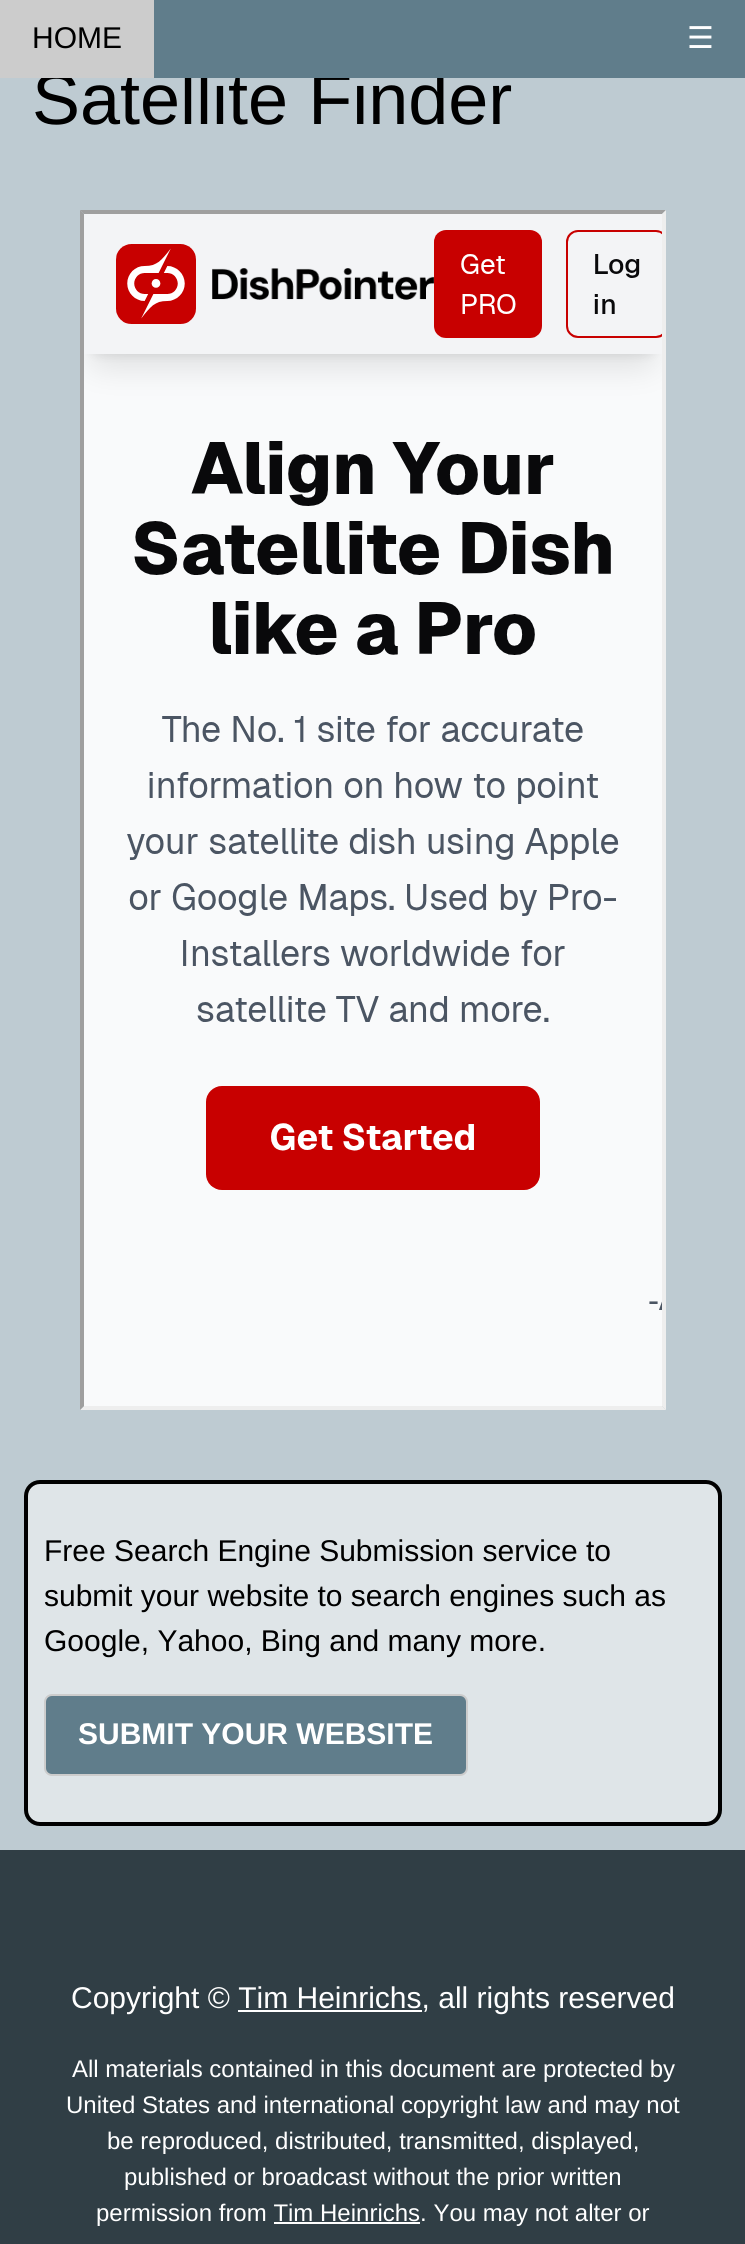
#include <cairo/cairo.h>
#include <math.h>
#include <stddef.h>

typedef struct { double x, y; const char *s; } line_t;
typedef struct { double x, y, w, h; unsigned color; } box_t;
static cairo_t *cr;

static void rgb(unsigned color)
{
	cairo_set_source_rgb(cr, (color >> 16) / 255.0, (color >> 8 & 255) / 255.0, (color & 255) / 255.0);
}

static void rrect(double x, double y, double w, double h, double r)
{
	cairo_new_sub_path(cr);
	cairo_arc(cr, x + w - r, y + h - r, r, 0, M_PI / 2);
	cairo_arc(cr, x + r, y + h - r, r, M_PI / 2, M_PI);
	cairo_arc(cr, x + r, y + r, r, M_PI, 1.5 * M_PI);
	cairo_arc(cr, x + w - r, y + r, r, 1.5 * M_PI, 2 * M_PI);
	cairo_close_path(cr);
}

static void image(const char *path, double x, double y, double w, double h)
{
	cairo_surface_t *image = cairo_image_surface_create_from_png(path);
	cairo_save(cr);
	cairo_set_source_surface(cr, image, x, y);
	cairo_rectangle(cr, x, y, w, h);
	cairo_fill(cr);
	cairo_restore(cr);
	cairo_surface_destroy(image);
}

int main(void) {
	cairo_surface_t *surface = cairo_image_surface_create(CAIRO_FORMAT_RGB24, 745, 2244);
	cr = cairo_create(surface);
	cairo_font_options_t *options = cairo_font_options_create();
	cairo_font_options_set_hint_metrics(options, CAIRO_HINT_METRICS_OFF);
	cairo_font_options_set_hint_style(options, CAIRO_HINT_STYLE_NONE);
	cairo_set_font_options(cr, options);
	cairo_set_miter_limit(cr, 4);
	rgb(0xbecbd2);
	cairo_paint(cr);
	rgb(0x9f9f9f);
	cairo_new_path(cr);
	cairo_move_to(cr, 80, 210);
	cairo_line_to(cr, 666, 210);
	cairo_line_to(cr, 662, 214);
	cairo_line_to(cr, 84, 214);
	cairo_close_path(cr);
	cairo_fill(cr);
	rgb(0xeeeeee);
	cairo_new_path(cr);
	cairo_move_to(cr, 666, 210);
	cairo_line_to(cr, 666, 1410);
	cairo_line_to(cr, 662, 1406);
	cairo_line_to(cr, 662, 214);
	cairo_close_path(cr);
	cairo_fill(cr);
	cairo_new_path(cr);
	cairo_move_to(cr, 666, 1410);
	cairo_line_to(cr, 80, 1410);
	cairo_line_to(cr, 84, 1406);
	cairo_line_to(cr, 662, 1406);
	cairo_close_path(cr);
	cairo_fill(cr);
	rgb(0x9f9f9f);
	cairo_new_path(cr);
	cairo_move_to(cr, 80, 1410);
	cairo_line_to(cr, 80, 210);
	cairo_line_to(cr, 84, 214);
	cairo_line_to(cr, 84, 1406);
	cairo_close_path(cr);
	cairo_fill(cr);
	image("img/1.png", 84, 214, 578, 1192);
	rgb(0xdfe5e8);
	rrect(26, 1482, 694, 342, 14);
	cairo_fill_preserve(cr);
	rgb(0x000000);
	cairo_set_line_width(cr, 4);
	cairo_stroke(cr);
	rgb(0x607d8b);
	rrect(45, 1695, 422, 80, 7);
	cairo_fill_preserve(cr);
	rgb(0xcccccc);
	cairo_set_line_width(cr, 2);
	cairo_stroke(cr);
	{
		static const box_t items[] = {
			{0, 1850, 745, 394, 0x303e45},
			{238, 2010, 184, 2, 0xffffff},
			{274, 2222, 146, 2, 0xffffff},
		};
		for (size_t i = 0; i < sizeof items / sizeof *items; i++) {
			rgb(items[i].color);
			cairo_rectangle(cr, items[i].x, items[i].y, items[i].w, items[i].h);
			cairo_fill(cr);
		}
	}
	cairo_select_font_face(cr, "Liberation Sans", CAIRO_FONT_SLANT_NORMAL, CAIRO_FONT_WEIGHT_NORMAL);
	cairo_set_font_size(cr, 72);
	rgb(0x000000);
	cairo_move_to(cr, 32, 124);
	cairo_show_text(cr, "Satellite Finder");
	rgb(0x607d8b);
	cairo_rectangle(cr, 154, 0, 591, 78);
	cairo_fill(cr);
	cairo_select_font_face(cr, "DejaVu Sans", CAIRO_FONT_SLANT_NORMAL, CAIRO_FONT_WEIGHT_NORMAL);
	cairo_set_font_size(cr, 30);
	rgb(0xffffff);
	cairo_move_to(cr, 687, 48);
	cairo_show_text(cr, "☰");
	rgb(0xcccccc);
	cairo_rectangle(cr, 0, 0, 154, 78);
	cairo_fill(cr);
	cairo_select_font_face(cr, "Liberation Sans", CAIRO_FONT_SLANT_NORMAL, CAIRO_FONT_WEIGHT_NORMAL);
	rgb(0x000000);
	{
		static const line_t items[] = {
			{32, 48, "HOME"},
			{44, 1561, "Free Search Engine Submission service to"},
			{44, 1606, "submit your website to search engines such as"},
			{44, 1651, "Google, Yahoo, Bing and many more."},
		};
		for (size_t i = 0; i < sizeof items / sizeof *items; i++) {
			cairo_move_to(cr, items[i].x, items[i].y);
			cairo_show_text(cr, items[i].s);
		}
	}
	cairo_select_font_face(cr, "Liberation Sans", CAIRO_FONT_SLANT_NORMAL, CAIRO_FONT_WEIGHT_BOLD);
	rgb(0xffffff);
	cairo_move_to(cr, 78, 1744);
	cairo_show_text(cr, "SUBMIT YOUR WEBSITE");
	cairo_select_font_face(cr, "Liberation Sans", CAIRO_FONT_SLANT_NORMAL, CAIRO_FONT_WEIGHT_NORMAL);
	cairo_move_to(cr, 71, 2008);
	cairo_show_text(cr, "Copyright © Tim Heinrichs, all rights reserved");
	cairo_set_font_size(cr, 24);
	{
		static const line_t items[] = {
			{72, 2077, "All materials contained in this document are protected by"},
			{66, 2113, "United States and international copyright law and may not"},
			{107, 2149, "be reproduced, distributed, transmitted, displayed,"},
			{124, 2185, "published or broadcast without the prior written"},
			{96, 2221, "permission from Tim Heinrichs. You may not alter or"},
		};
		for (size_t i = 0; i < sizeof items / sizeof *items; i++) {
			cairo_move_to(cr, items[i].x, items[i].y);
			cairo_show_text(cr, items[i].s);
		}
	}
	cairo_surface_write_to_png(surface, "page.png");
	cairo_font_options_destroy(options);
	cairo_destroy(cr);
	cairo_surface_destroy(surface);
	return 0;
}
